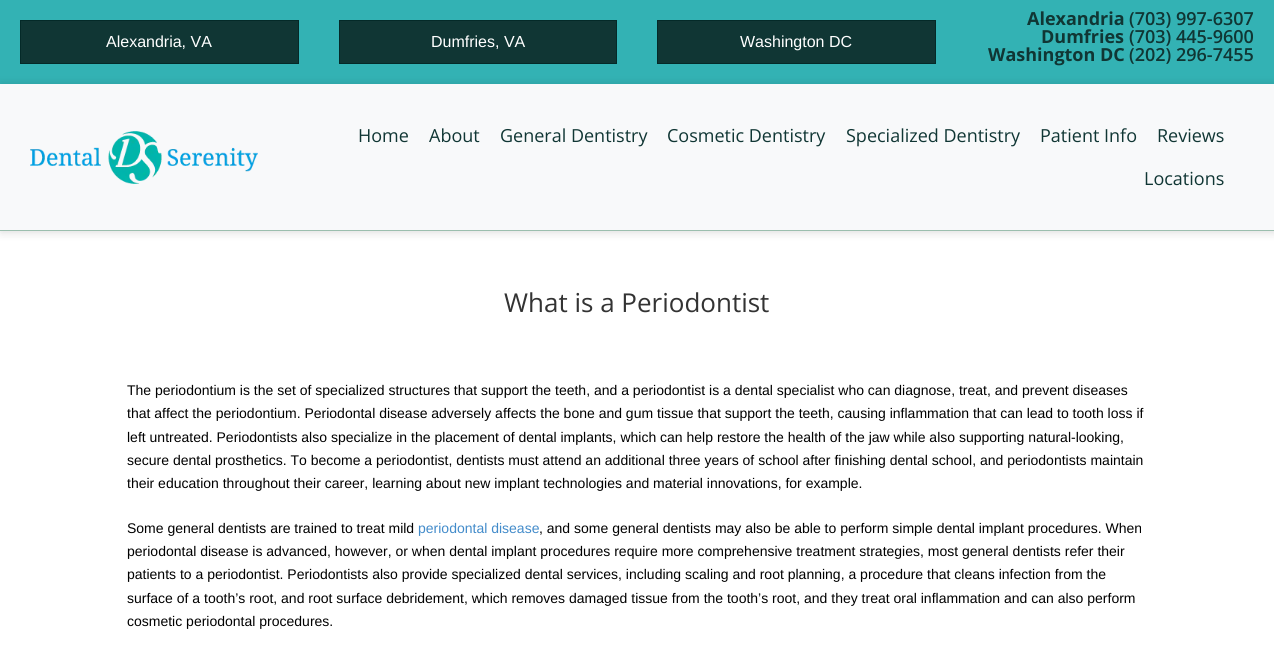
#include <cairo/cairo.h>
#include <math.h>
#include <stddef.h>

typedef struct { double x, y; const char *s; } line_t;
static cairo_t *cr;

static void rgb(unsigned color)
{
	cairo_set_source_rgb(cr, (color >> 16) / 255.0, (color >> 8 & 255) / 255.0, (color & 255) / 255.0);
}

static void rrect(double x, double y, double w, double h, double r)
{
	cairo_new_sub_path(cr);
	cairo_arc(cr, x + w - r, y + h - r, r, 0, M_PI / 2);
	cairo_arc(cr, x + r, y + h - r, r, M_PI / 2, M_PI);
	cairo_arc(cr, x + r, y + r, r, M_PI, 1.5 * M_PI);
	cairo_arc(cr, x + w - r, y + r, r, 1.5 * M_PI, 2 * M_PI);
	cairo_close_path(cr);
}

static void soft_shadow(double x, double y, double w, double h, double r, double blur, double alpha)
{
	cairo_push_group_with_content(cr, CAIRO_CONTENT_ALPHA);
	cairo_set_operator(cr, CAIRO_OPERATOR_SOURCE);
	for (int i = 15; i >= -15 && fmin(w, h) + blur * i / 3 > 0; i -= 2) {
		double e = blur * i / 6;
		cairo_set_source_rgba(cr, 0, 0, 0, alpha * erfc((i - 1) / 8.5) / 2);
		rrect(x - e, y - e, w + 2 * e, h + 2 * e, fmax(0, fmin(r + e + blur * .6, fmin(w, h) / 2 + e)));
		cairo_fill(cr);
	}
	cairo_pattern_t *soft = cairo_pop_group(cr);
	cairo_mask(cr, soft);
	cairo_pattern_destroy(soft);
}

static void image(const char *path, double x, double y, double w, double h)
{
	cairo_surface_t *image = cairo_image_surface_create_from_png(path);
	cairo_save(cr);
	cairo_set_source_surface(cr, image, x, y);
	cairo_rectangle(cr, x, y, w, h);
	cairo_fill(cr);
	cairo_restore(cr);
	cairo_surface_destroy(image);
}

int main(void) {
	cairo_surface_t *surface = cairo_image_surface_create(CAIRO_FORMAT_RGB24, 1274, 652);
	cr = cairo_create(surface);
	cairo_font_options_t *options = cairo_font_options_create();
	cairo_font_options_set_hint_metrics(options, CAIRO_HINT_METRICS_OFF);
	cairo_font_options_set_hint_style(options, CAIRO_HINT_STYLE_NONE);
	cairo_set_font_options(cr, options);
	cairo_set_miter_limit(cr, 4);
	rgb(0xffffff);
	cairo_paint(cr);
	rgb(0x33b2b4);
	cairo_rectangle(cr, 0, 0, 1274, 84);
	cairo_fill(cr);
	rgb(0x103634);
	cairo_rectangle(cr, 20.5, 20.5, 278, 43);
	cairo_fill_preserve(cr);
	rgb(0x042a28);
	cairo_set_line_width(cr, 1);
	cairo_stroke(cr);
	rgb(0x103634);
	cairo_rectangle(cr, 339.5, 20.5, 277, 43);
	cairo_fill_preserve(cr);
	rgb(0x042a28);
	cairo_stroke(cr);
	rgb(0x103634);
	cairo_rectangle(cr, 657.5, 20.5, 278, 43);
	cairo_fill_preserve(cr);
	rgb(0x042a28);
	cairo_stroke(cr);
	rgb(0x000000);
	soft_shadow(1, 85, 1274, 147, 0, 5, 0.15);
	rgb(0xf8f9fa);
	cairo_rectangle(cr, 0, 84, 1274, 146);
	cairo_fill(cr);
	rgb(0x9bbeae);
	cairo_rectangle(cr, 0, 230, 1274, 1);
	cairo_fill(cr);
	image("img/1.png", 30, 131, 228, 53);
	cairo_select_font_face(cr, "Liberation Sans", CAIRO_FONT_SLANT_NORMAL, CAIRO_FONT_WEIGHT_NORMAL);
	cairo_set_font_size(cr, 16);
	rgb(0xffffff);
	{
		static const line_t items[] = {
			{106, 47, "Alexandria, VA"},
			{431, 47, "Dumfries, VA"},
			{740, 47, "Washington DC"},
		};
		for (size_t i = 0; i < sizeof items / sizeof *items; i++) {
			cairo_move_to(cr, items[i].x, items[i].y);
			cairo_show_text(cr, items[i].s);
		}
	}
	cairo_select_font_face(cr, "Open Sans", CAIRO_FONT_SLANT_NORMAL, CAIRO_FONT_WEIGHT_BOLD);
	cairo_set_font_size(cr, 18);
	rgb(0x103634);
	cairo_move_to(cr, 1027, 25);
	cairo_show_text(cr, "Alexandria");
	cairo_select_font_face(cr, "Open Sans SemiBold", CAIRO_FONT_SLANT_NORMAL, CAIRO_FONT_WEIGHT_NORMAL);
	cairo_move_to(cr, 1129, 25);
	cairo_show_text(cr, "(703) 997-6307");
	cairo_select_font_face(cr, "Open Sans", CAIRO_FONT_SLANT_NORMAL, CAIRO_FONT_WEIGHT_BOLD);
	cairo_move_to(cr, 1041, 43);
	cairo_show_text(cr, "Dumfries");
	cairo_select_font_face(cr, "Open Sans SemiBold", CAIRO_FONT_SLANT_NORMAL, CAIRO_FONT_WEIGHT_NORMAL);
	cairo_move_to(cr, 1129, 43);
	cairo_show_text(cr, "(703) 445-9600");
	cairo_select_font_face(cr, "Open Sans", CAIRO_FONT_SLANT_NORMAL, CAIRO_FONT_WEIGHT_BOLD);
	cairo_move_to(cr, 988, 61);
	cairo_show_text(cr, "Washington DC");
	cairo_select_font_face(cr, "Open Sans SemiBold", CAIRO_FONT_SLANT_NORMAL, CAIRO_FONT_WEIGHT_NORMAL);
	cairo_move_to(cr, 1129, 61);
	cairo_show_text(cr, "(202) 296-7455");
	cairo_select_font_face(cr, "Open Sans", CAIRO_FONT_SLANT_NORMAL, CAIRO_FONT_WEIGHT_NORMAL);
	{
		static const line_t items[] = {
			{358, 142, "Home"},
			{429, 142, "About"},
			{500, 142, "General Dentistry"},
			{667, 142, "Cosmetic Dentistry"},
			{846, 142, "Specialized Dentistry"},
			{1040, 142, "Patient Info"},
			{1157, 142, "Reviews"},
			{1144, 185, "Locations"},
		};
		for (size_t i = 0; i < sizeof items / sizeof *items; i++) {
			cairo_move_to(cr, items[i].x, items[i].y);
			cairo_show_text(cr, items[i].s);
		}
	}
	cairo_set_font_size(cr, 26);
	rgb(0x333333);
	cairo_move_to(cr, 504, 312);
	cairo_show_text(cr, "What is a Periodontist");
	cairo_select_font_face(cr, "Liberation Sans", CAIRO_FONT_SLANT_NORMAL, CAIRO_FONT_WEIGHT_NORMAL);
	cairo_set_font_size(cr, 14);
	rgb(0x000000);
	{
		static const line_t items[] = {
			{127, 395, "The periodontium is the set of specialized structures that support the teeth, and a periodontist is a dental specialist who can diagnose, treat, and prevent diseases"},
			{127, 418, "that affect the periodontium. Periodontal disease adversely affects the bone and gum tissue that support the teeth, causing inflammation that can lead to tooth loss if"},
			{127, 442, "left untreated. Periodontists also specialize in the placement of dental implants, which can help restore the health of the jaw while also supporting natural-looking,"},
			{127, 465, "secure dental prosthetics. To become a periodontist, dentists must attend an additional three years of school after finishing dental school, and periodontists maintain"},
			{127, 488, "their education throughout their career, learning about new implant technologies and material innovations, for example."},
			{127, 533, "Some general dentists are trained to treat mild"},
		};
		for (size_t i = 0; i < sizeof items / sizeof *items; i++) {
			cairo_move_to(cr, items[i].x, items[i].y);
			cairo_show_text(cr, items[i].s);
		}
	}
	rgb(0x428bca);
	cairo_move_to(cr, 418, 533);
	cairo_show_text(cr, "periodontal disease");
	rgb(0x000000);
	{
		static const line_t items[] = {
			{539, 533, ", and some general dentists may also be able to perform simple dental implant procedures. When"},
			{127, 556, "periodontal disease is advanced, however, or when dental implant procedures require more comprehensive treatment strategies, most general dentists refer their"},
			{127, 579, "patients to a periodontist. Periodontists also provide specialized dental services, including scaling and root planning, a procedure that cleans infection from the"},
			{127, 603, "surface of a tooth’s root, and root surface debridement, which removes damaged tissue from the tooth’s root, and they treat oral inflammation and can also perform"},
			{127, 626, "cosmetic periodontal procedures."},
		};
		for (size_t i = 0; i < sizeof items / sizeof *items; i++) {
			cairo_move_to(cr, items[i].x, items[i].y);
			cairo_show_text(cr, items[i].s);
		}
	}
	cairo_surface_write_to_png(surface, "page.png");
	cairo_font_options_destroy(options);
	cairo_destroy(cr);
	cairo_surface_destroy(surface);
	return 0;
}
